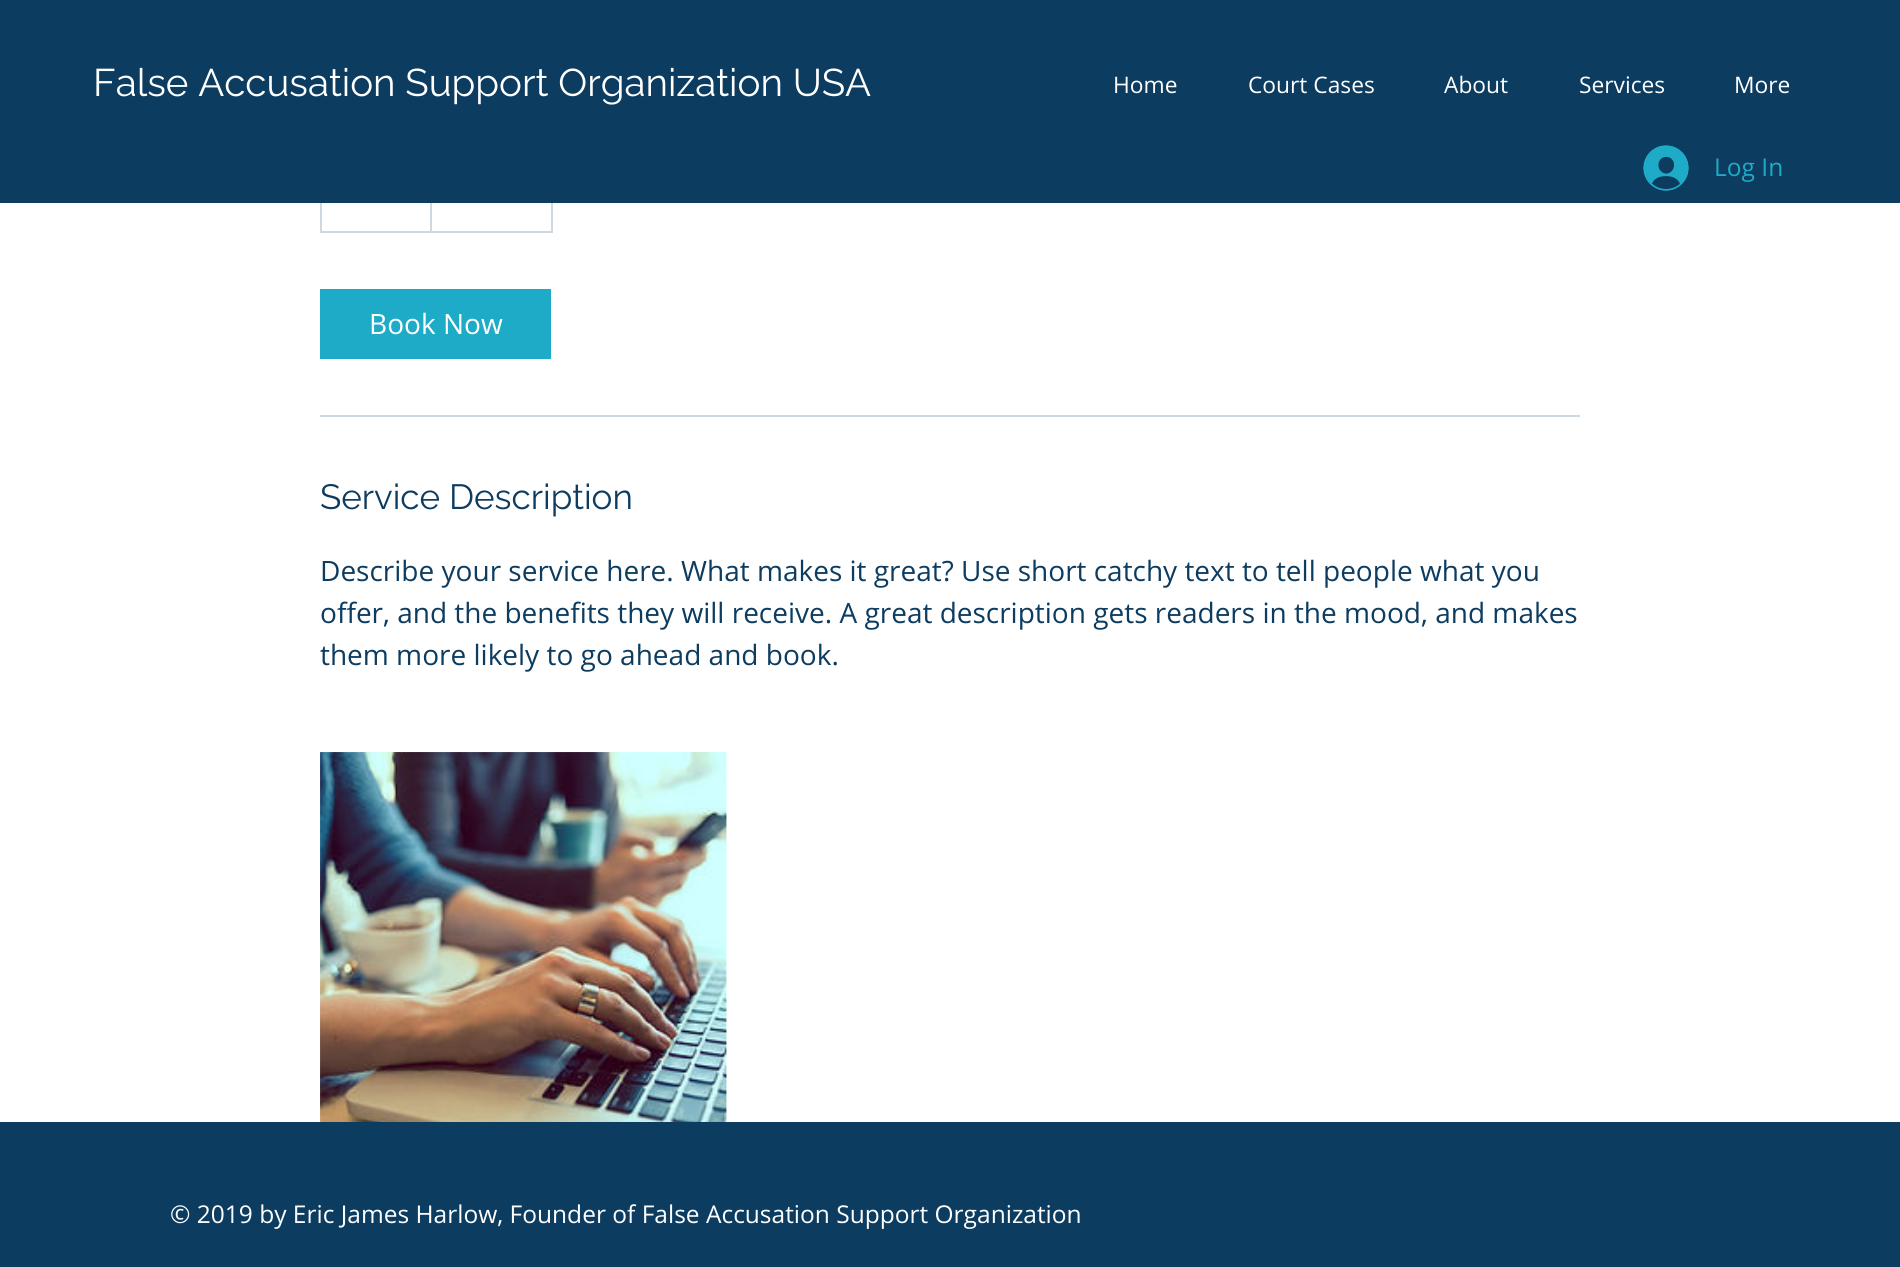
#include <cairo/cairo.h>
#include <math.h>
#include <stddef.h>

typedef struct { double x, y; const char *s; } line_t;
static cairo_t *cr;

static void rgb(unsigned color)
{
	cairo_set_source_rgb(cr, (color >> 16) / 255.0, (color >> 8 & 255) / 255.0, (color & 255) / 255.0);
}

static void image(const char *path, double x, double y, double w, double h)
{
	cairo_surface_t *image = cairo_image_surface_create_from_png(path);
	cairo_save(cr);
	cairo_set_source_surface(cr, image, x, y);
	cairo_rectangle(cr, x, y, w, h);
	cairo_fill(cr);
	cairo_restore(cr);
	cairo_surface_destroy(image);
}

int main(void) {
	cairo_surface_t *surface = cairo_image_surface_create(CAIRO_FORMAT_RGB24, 1900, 1267);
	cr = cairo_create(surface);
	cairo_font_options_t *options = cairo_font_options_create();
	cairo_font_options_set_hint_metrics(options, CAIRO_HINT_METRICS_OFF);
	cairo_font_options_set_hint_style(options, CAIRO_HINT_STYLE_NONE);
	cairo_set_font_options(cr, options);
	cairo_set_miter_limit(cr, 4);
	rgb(0xffffff);
	cairo_paint(cr);
	cairo_rectangle(cr, 321, 132, 231, 100);
	rgb(0xced8df);
	cairo_stroke(cr);
	cairo_new_path(cr);
	cairo_move_to(cr, 430, 231);
	cairo_line_to(cr, 430, 131);
	cairo_line_to(cr, 432, 133);
	cairo_line_to(cr, 432, 231);
	cairo_close_path(cr);
	cairo_fill(cr);
	rgb(0x0c3c60);
	cairo_rectangle(cr, 0, 0, 1900, 203);
	cairo_fill(cr);
	image("img/1.png", 1643, 145, 46, 46);
	rgb(0x1eabc7);
	cairo_rectangle(cr, 320, 289, 231, 70);
	cairo_fill(cr);
	rgb(0xced8df);
	cairo_rectangle(cr, 320, 415, 1260, 2);
	cairo_fill(cr);
	image("img/2.png", 320, 752, 407, 370);
	image("img/3.png", 320, 752, 407, 370);
	rgb(0x0c3c60);
	cairo_rectangle(cr, 0, 1122, 1900, 145);
	cairo_fill(cr);
	cairo_select_font_face(cr, "Raleway", CAIRO_FONT_SLANT_NORMAL, CAIRO_FONT_WEIGHT_NORMAL);
	cairo_set_font_size(cr, 38.5);
	rgb(0xffffff);
	cairo_move_to(cr, 93, 96);
	cairo_show_text(cr, "False Accusation Support Organization USA");
	cairo_select_font_face(cr, "Open Sans", CAIRO_FONT_SLANT_NORMAL, CAIRO_FONT_WEIGHT_NORMAL);
	cairo_set_font_size(cr, 22.75);
	{
		static const line_t items[] = {
			{1113, 93, "Home"},
			{1248, 93, "Court Cases"},
			{1444, 93, "About"},
			{1579, 93, "Services"},
			{1734, 93, "More"},
		};
		for (size_t i = 0; i < sizeof items / sizeof *items; i++) {
			cairo_move_to(cr, items[i].x, items[i].y);
			cairo_show_text(cr, items[i].s);
		}
	}
	cairo_set_font_size(cr, 24.5);
	rgb(0x1eabc7);
	cairo_move_to(cr, 1714, 176);
	cairo_show_text(cr, "Log In");
	cairo_set_font_size(cr, 28);
	rgb(0xffffff);
	cairo_move_to(cr, 369, 334);
	cairo_show_text(cr, "Book Now");
	cairo_select_font_face(cr, "Raleway", CAIRO_FONT_SLANT_NORMAL, CAIRO_FONT_WEIGHT_NORMAL);
	cairo_set_font_size(cr, 35);
	rgb(0x0c3c60);
	cairo_move_to(cr, 320, 509);
	cairo_show_text(cr, "Service Description");
	cairo_select_font_face(cr, "Open Sans", CAIRO_FONT_SLANT_NORMAL, CAIRO_FONT_WEIGHT_NORMAL);
	cairo_set_font_size(cr, 28);
	{
		static const line_t items[] = {
			{320, 581, "Describe your service here. What makes it great? Use short catchy text to tell people what you"},
			{320, 623, "offer, and the benefits they will receive. A great description gets readers in the mood, and makes"},
			{320, 665, "them more likely to go ahead and book."},
		};
		for (size_t i = 0; i < sizeof items / sizeof *items; i++) {
			cairo_move_to(cr, items[i].x, items[i].y);
			cairo_show_text(cr, items[i].s);
		}
	}
	cairo_set_font_size(cr, 24.5);
	rgb(0xffffff);
	cairo_move_to(cr, 170, 1223);
	cairo_show_text(cr, "© 2019 by Eric James Harlow, Founder of False Accusation Support Organization");
	cairo_surface_write_to_png(surface, "page.png");
	cairo_font_options_destroy(options);
	cairo_destroy(cr);
	cairo_surface_destroy(surface);
	return 0;
}
